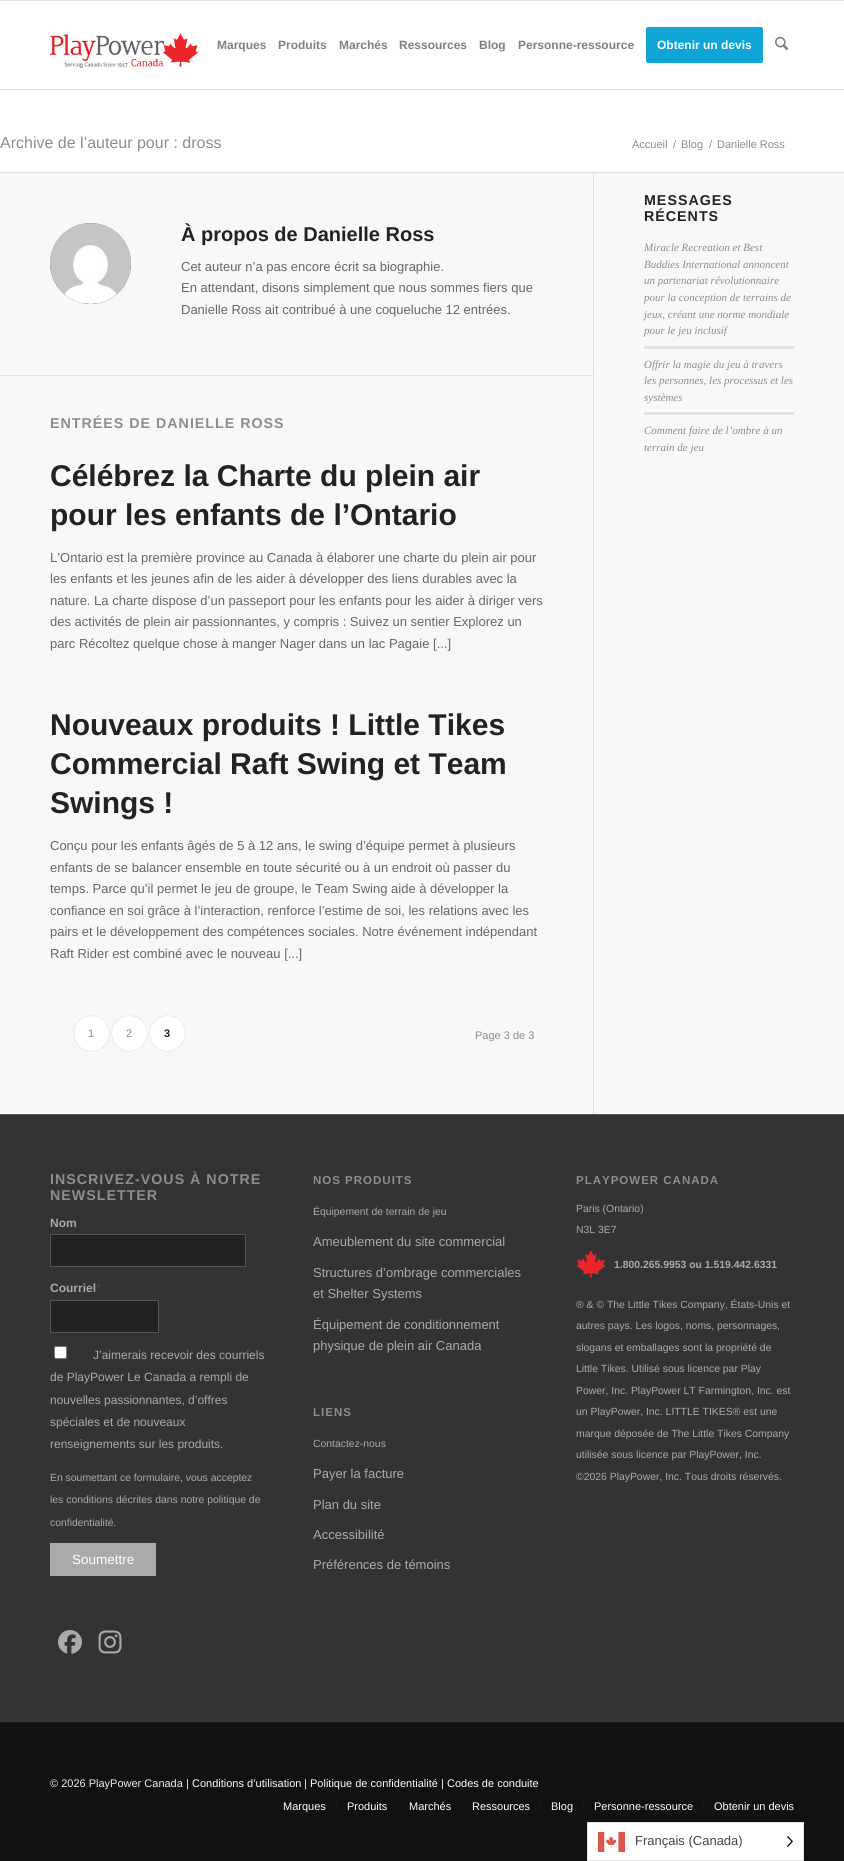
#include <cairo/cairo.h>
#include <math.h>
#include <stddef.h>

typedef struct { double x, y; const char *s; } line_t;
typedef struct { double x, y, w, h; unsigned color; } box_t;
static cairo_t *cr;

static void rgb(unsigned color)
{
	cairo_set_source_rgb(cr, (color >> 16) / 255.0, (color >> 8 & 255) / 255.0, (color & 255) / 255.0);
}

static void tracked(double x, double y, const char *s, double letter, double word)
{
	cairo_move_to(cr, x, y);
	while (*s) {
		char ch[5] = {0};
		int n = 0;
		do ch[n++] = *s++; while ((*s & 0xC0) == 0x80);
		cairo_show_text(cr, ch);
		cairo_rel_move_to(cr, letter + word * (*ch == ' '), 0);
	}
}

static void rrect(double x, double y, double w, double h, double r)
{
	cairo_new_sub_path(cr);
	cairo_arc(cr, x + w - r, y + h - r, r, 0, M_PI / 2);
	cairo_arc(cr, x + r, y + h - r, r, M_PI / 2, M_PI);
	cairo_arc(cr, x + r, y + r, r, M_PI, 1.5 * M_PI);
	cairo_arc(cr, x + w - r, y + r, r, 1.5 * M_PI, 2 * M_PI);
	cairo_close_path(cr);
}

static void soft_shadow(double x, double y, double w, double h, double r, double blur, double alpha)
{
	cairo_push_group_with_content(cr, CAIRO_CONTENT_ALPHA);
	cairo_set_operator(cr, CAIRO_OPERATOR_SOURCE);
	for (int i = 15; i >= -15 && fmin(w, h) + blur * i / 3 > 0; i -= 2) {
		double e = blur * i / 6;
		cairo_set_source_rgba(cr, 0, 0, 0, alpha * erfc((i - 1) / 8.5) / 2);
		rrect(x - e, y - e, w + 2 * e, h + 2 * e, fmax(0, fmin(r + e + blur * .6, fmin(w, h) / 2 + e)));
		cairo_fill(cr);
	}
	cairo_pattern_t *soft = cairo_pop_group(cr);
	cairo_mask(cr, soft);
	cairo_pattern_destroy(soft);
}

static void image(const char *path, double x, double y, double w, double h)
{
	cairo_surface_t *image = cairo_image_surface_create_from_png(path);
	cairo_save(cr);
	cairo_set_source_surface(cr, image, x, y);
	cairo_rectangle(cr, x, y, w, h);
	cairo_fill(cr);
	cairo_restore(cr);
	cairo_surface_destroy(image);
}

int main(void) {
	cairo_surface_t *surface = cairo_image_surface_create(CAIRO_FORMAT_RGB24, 844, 1861);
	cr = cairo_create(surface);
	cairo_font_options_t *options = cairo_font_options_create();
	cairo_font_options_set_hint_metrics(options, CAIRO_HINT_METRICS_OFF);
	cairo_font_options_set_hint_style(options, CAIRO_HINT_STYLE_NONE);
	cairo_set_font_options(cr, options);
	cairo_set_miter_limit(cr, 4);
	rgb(0xffffff);
	cairo_paint(cr);
	rgb(0xe1e1e1);
	cairo_rectangle(cr, 0, 0, 844, 1);
	cairo_fill(cr);
	cairo_rectangle(cr, 0, 89, 844, 1);
	cairo_fill(cr);
	image("img/1.png", 50, 33, 149, 35);
	rgb(0x10a5d7);
	rrect(647, 28, 115, 34, 1);
	cairo_fill_preserve(cr);
	cairo_stroke(cr);
	image("img/2.png", 775, 36, 13, 15);
	{
		static const box_t items[] = {
			{0, 173, 844, 941, 0xf8f8f8},
			{0, 172, 844, 1, 0xe1e1e1},
			{593, 173, 1, 941, 0xe1e1e1},
		};
		for (size_t i = 0; i < sizeof items / sizeof *items; i++) {
			rgb(items[i].color);
			cairo_rectangle(cr, items[i].x, items[i].y, items[i].w, items[i].h);
			cairo_fill(cr);
		}
	}
	rgb(0x8d8d8d);
	cairo_arc(cr, 90.5, 263.5, 40.5, 0, 2 * M_PI);
	cairo_fill(cr);
	image("img/3.png", 50, 223, 81, 81);
	rgb(0xe1e1e1);
	cairo_rectangle(cr, 0, 375, 593, 1);
	cairo_fill(cr);
	rgb(0x000000);
	soft_shadow(74, 1016, 35, 35, 17.5, 0.5, 0.2);
	rgb(0xffffff);
	cairo_arc(cr, 91.5, 1033.5, 17.5, 0, 2 * M_PI);
	cairo_fill(cr);
	rgb(0x000000);
	soft_shadow(112, 1016, 35, 35, 17.5, 0.5, 0.2);
	rgb(0xffffff);
	cairo_arc(cr, 129.5, 1033.5, 17.5, 0, 2 * M_PI);
	cairo_fill(cr);
	rgb(0x000000);
	soft_shadow(150, 1016, 35, 35, 17.5, 0.5, 0.2);
	rgb(0xffffff);
	cairo_arc(cr, 167.5, 1033.5, 17.5, 0, 2 * M_PI);
	cairo_fill(cr);
	{
		static const box_t items[] = {
			{644, 346, 150, 3, 0xe1e1e1},
			{644, 412, 150, 3, 0xe1e1e1},
			{0, 1115, 844, 607, 0x333333},
			{0, 1114, 844, 1, 0x555555},
		};
		for (size_t i = 0; i < sizeof items / sizeof *items; i++) {
			rgb(items[i].color);
			cairo_rectangle(cr, items[i].x, items[i].y, items[i].w, items[i].h);
			cairo_fill(cr);
		}
	}
	rgb(0x222222);
	cairo_rectangle(cr, 50.5, 1234.5, 195, 32);
	cairo_fill_preserve(cr);
	rgb(0x555555);
	cairo_set_line_width(cr, 1);
	cairo_stroke(cr);
	rgb(0x222222);
	cairo_rectangle(cr, 50.5, 1300.5, 108, 32);
	cairo_fill_preserve(cr);
	rgb(0x555555);
	cairo_stroke(cr);
	rgb(0xffffff);
	rrect(54.5, 1346.5, 12, 12, 1.5);
	cairo_fill_preserve(cr);
	rgb(0x767676);
	cairo_stroke(cr);
	rgb(0xaaaaaa);
	cairo_rectangle(cr, 50, 1543, 106, 33);
	cairo_fill(cr);
	image("img/4.png", 58, 1630, 24, 24);
	image("img/5.png", 98, 1630, 24, 24);
	image("img/6.png", 576, 1250, 30, 28);
	{
		static const box_t items[] = {
			{0, 1723, 844, 138, 0x111111},
			{0, 1722, 844, 1, 0x161616},
			{336, 1801, 1, 10, 0x161616},
			{398, 1801, 1, 10, 0x161616},
			{461, 1801, 1, 10, 0x161616},
			{540, 1801, 1, 10, 0x161616},
			{583, 1801, 1, 10, 0x161616},
			{703, 1801, 1, 10, 0x161616},
		};
		for (size_t i = 0; i < sizeof items / sizeof *items; i++) {
			rgb(items[i].color);
			cairo_rectangle(cr, items[i].x, items[i].y, items[i].w, items[i].h);
			cairo_fill(cr);
		}
	}
	rgb(0xffffff);
	cairo_rectangle(cr, 587.5, 1822.5, 216, 38);
	cairo_fill_preserve(cr);
	rgb(0xe0e0e0);
	cairo_stroke(cr);
	image("img/7.png", 598, 1832, 27, 20);
	image("img/8.png", 787, 1836, 6, 11);
	cairo_select_font_face(cr, "Liberation Sans", CAIRO_FONT_SLANT_NORMAL, CAIRO_FONT_WEIGHT_BOLD);
	cairo_set_font_size(cr, 12);
	rgb(0x808080);
	{
		static const line_t items[] = {
			{217, 49, "Marques"},
			{278, 49, "Produits"},
			{339, 49, "Marchés"},
			{399, 49, "Ressources"},
			{479, 49, "Blog"},
			{518, 49, "Personne-ressource"},
		};
		for (size_t i = 0; i < sizeof items / sizeof *items; i++) {
			cairo_move_to(cr, items[i].x, items[i].y);
			cairo_show_text(cr, items[i].s);
		}
	}
	rgb(0xffffff);
	cairo_move_to(cr, 657, 49);
	cairo_show_text(cr, "Obtenir un devis");
	cairo_select_font_face(cr, "Liberation Sans", CAIRO_FONT_SLANT_NORMAL, CAIRO_FONT_WEIGHT_NORMAL);
	cairo_set_font_size(cr, 16);
	rgb(0x8d8d8d);
	cairo_move_to(cr, 0, 148);
	cairo_show_text(cr, "Archive de l’auteur pour : dross");
	cairo_set_font_size(cr, 11);
	{
		static const line_t items[] = {
			{632, 148, "Accueil"},
			{673, 148, "/"},
			{681, 148, "Blog"},
			{709, 148, "/"},
			{717, 148, "Danielle Ross"},
		};
		for (size_t i = 0; i < sizeof items / sizeof *items; i++) {
			cairo_move_to(cr, items[i].x, items[i].y);
			cairo_show_text(cr, items[i].s);
		}
	}
	cairo_select_font_face(cr, "Liberation Sans", CAIRO_FONT_SLANT_NORMAL, CAIRO_FONT_WEIGHT_BOLD);
	cairo_set_font_size(cr, 20);
	rgb(0x222222);
	cairo_move_to(cr, 181, 241);
	cairo_show_text(cr, "À propos de Danielle Ross");
	cairo_select_font_face(cr, "Liberation Sans", CAIRO_FONT_SLANT_NORMAL, CAIRO_FONT_WEIGHT_NORMAL);
	cairo_set_font_size(cr, 13);
	rgb(0x666666);
	{
		static const line_t items[] = {
			{181, 271, "Cet auteur n’a pas encore écrit sa biographie."},
			{181, 292, "En attendant, disons simplement que nous sommes fiers que"},
			{181, 314, "Danielle Ross ait contribué à une coqueluche 12 entrées."},
		};
		for (size_t i = 0; i < sizeof items / sizeof *items; i++) {
			cairo_move_to(cr, items[i].x, items[i].y);
			cairo_show_text(cr, items[i].s);
		}
	}
	cairo_select_font_face(cr, "Liberation Sans", CAIRO_FONT_SLANT_NORMAL, CAIRO_FONT_WEIGHT_BOLD);
	cairo_set_font_size(cr, 14.25);
	rgb(0x8d8d8d);
	tracked(50, 428, "ENTRÉES DE DANIELLE ROSS", 1, 0);
	cairo_set_font_size(cr, 30);
	rgb(0x222222);
	cairo_move_to(cr, 50, 486);
	cairo_show_text(cr, "Célébrez la Charte du plein air");
	cairo_move_to(cr, 50, 525);
	cairo_show_text(cr, "pour les enfants de l’Ontario");
	cairo_select_font_face(cr, "Liberation Sans", CAIRO_FONT_SLANT_NORMAL, CAIRO_FONT_WEIGHT_NORMAL);
	cairo_set_font_size(cr, 13);
	rgb(0x666666);
	{
		static const line_t items[] = {
			{50, 562, "L’Ontario est la première province au Canada à élaborer une charte du plein air pour"},
			{50, 583, "les enfants et les jeunes afin de les aider à développer des liens durables avec la"},
			{50, 605, "nature. La charte dispose d’un passeport pour les enfants pour les aider à diriger vers"},
			{50, 626, "des activités de plein air passionnantes, y compris : Suivez un sentier Explorez un"},
			{50, 648, "parc Récoltez quelque chose à manger Nager dans un lac Pagaie [...]"},
		};
		for (size_t i = 0; i < sizeof items / sizeof *items; i++) {
			cairo_move_to(cr, items[i].x, items[i].y);
			cairo_show_text(cr, items[i].s);
		}
	}
	cairo_select_font_face(cr, "Liberation Sans", CAIRO_FONT_SLANT_NORMAL, CAIRO_FONT_WEIGHT_BOLD);
	cairo_set_font_size(cr, 30);
	rgb(0x222222);
	{
		static const line_t items[] = {
			{50, 735, "Nouveaux produits ! Little Tikes"},
			{50, 774, "Commercial Raft Swing et Team"},
			{50, 813, "Swings !"},
		};
		for (size_t i = 0; i < sizeof items / sizeof *items; i++) {
			cairo_move_to(cr, items[i].x, items[i].y);
			cairo_show_text(cr, items[i].s);
		}
	}
	cairo_select_font_face(cr, "Liberation Sans", CAIRO_FONT_SLANT_NORMAL, CAIRO_FONT_WEIGHT_NORMAL);
	cairo_set_font_size(cr, 13);
	rgb(0x666666);
	{
		static const line_t items[] = {
			{50, 850, "Conçu pour les enfants âgés de 5 à 12 ans, le swing d’équipe permet à plusieurs"},
			{50, 872, "enfants de se balancer ensemble en toute sécurité ou à un endroit où passer du"},
			{50, 893, "temps. Parce qu’il permet le jeu de groupe, le Team Swing aide à développer la"},
			{50, 915, "confiance en soi grâce à l’interaction, renforce l’estime de soi, les relations avec les"},
			{50, 936, "pairs et le développement des compétences sociales. Notre événement indépendant"},
			{50, 958, "Raft Rider est combiné avec le nouveau [...]"},
		};
		for (size_t i = 0; i < sizeof items / sizeof *items; i++) {
			cairo_move_to(cr, items[i].x, items[i].y);
			cairo_show_text(cr, items[i].s);
		}
	}
	cairo_set_font_size(cr, 11);
	rgb(0x8d8d8d);
	cairo_move_to(cr, 88, 1037);
	cairo_show_text(cr, "1");
	cairo_move_to(cr, 126, 1037);
	cairo_show_text(cr, "2");
	cairo_select_font_face(cr, "Liberation Sans", CAIRO_FONT_SLANT_NORMAL, CAIRO_FONT_WEIGHT_BOLD);
	rgb(0x222222);
	cairo_move_to(cr, 164, 1037);
	cairo_show_text(cr, "3");
	cairo_select_font_face(cr, "Liberation Sans", CAIRO_FONT_SLANT_NORMAL, CAIRO_FONT_WEIGHT_NORMAL);
	rgb(0x8d8d8d);
	cairo_move_to(cr, 475, 1039);
	cairo_show_text(cr, "Page 3 de 3");
	cairo_select_font_face(cr, "Liberation Sans", CAIRO_FONT_SLANT_NORMAL, CAIRO_FONT_WEIGHT_BOLD);
	cairo_set_font_size(cr, 14.25);
	rgb(0x222222);
	tracked(644, 205, "MESSAGES", 1, 0);
	tracked(644, 221, "RÉCENTS", 1, 0);
	cairo_select_font_face(cr, "Liberation Serif", CAIRO_FONT_SLANT_ITALIC, CAIRO_FONT_WEIGHT_NORMAL);
	cairo_set_font_size(cr, 11);
	rgb(0x8d8d8d);
	{
		static const line_t items[] = {
			{644, 251, "Miracle Recreation et Best"},
			{644, 268, "Buddies International annoncent"},
			{644, 284, "un partenariat révolutionnaire"},
			{644, 301, "pour la conception de terrains de"},
			{644, 318, "jeux, créant une norme mondiale"},
			{644, 334, "pour le jeu inclusif"},
			{644, 368, "Offrir la magie du jeu à travers"},
			{644, 384, "les personnes, les processus et les"},
			{644, 401, "systèmes"},
			{644, 434, "Comment faire de l’ombre à un"},
			{644, 451, "terrain de jeu"},
		};
		for (size_t i = 0; i < sizeof items / sizeof *items; i++) {
			cairo_move_to(cr, items[i].x, items[i].y);
			cairo_show_text(cr, items[i].s);
		}
	}
	cairo_select_font_face(cr, "Liberation Sans", CAIRO_FONT_SLANT_NORMAL, CAIRO_FONT_WEIGHT_BOLD);
	cairo_set_font_size(cr, 14.25);
	tracked(50, 1184, "INSCRIVEZ-VOUS À NOTRE", 1, 0);
	tracked(50, 1200, "NEWSLETTER", 1, 0);
	cairo_set_font_size(cr, 12);
	rgb(0xaaaaaa);
	cairo_move_to(cr, 50, 1227);
	cairo_show_text(cr, "Nom");
	cairo_move_to(cr, 50, 1292);
	cairo_show_text(cr, "Courriel");
	cairo_select_font_face(cr, "Liberation Sans", CAIRO_FONT_SLANT_NORMAL, CAIRO_FONT_WEIGHT_NORMAL);
	cairo_set_font_size(cr, 13);
	rgb(0x444444);
	cairo_move_to(cr, 96, 1292);
	cairo_show_text(cr, "*");
	cairo_set_font_size(cr, 12);
	rgb(0xaaaaaa);
	{
		static const line_t items[] = {
			{93, 1359, "J’aimerais recevoir des courriels"},
			{50, 1381, "de PlayPower Le Canada a rempli de"},
			{50, 1404, "nouvelles passionnantes, d’offres"},
			{50, 1426, "spéciales et de nouveaux"},
			{50, 1448, "renseignements sur les produits."},
		};
		for (size_t i = 0; i < sizeof items / sizeof *items; i++) {
			cairo_move_to(cr, items[i].x, items[i].y);
			cairo_show_text(cr, items[i].s);
		}
	}
	cairo_set_font_size(cr, 10.4);
	{
		static const line_t items[] = {
			{50, 1481, "En soumettant ce formulaire, vous acceptez"},
			{50, 1503, "les conditions décrites dans notre politique de"},
			{50, 1526, "confidentialité."},
		};
		for (size_t i = 0; i < sizeof items / sizeof *items; i++) {
			cairo_move_to(cr, items[i].x, items[i].y);
			cairo_show_text(cr, items[i].s);
		}
	}
	cairo_set_font_size(cr, 13.5);
	rgb(0xffffff);
	cairo_move_to(cr, 72, 1564);
	cairo_show_text(cr, "Soumettre");
	cairo_select_font_face(cr, "Liberation Sans", CAIRO_FONT_SLANT_NORMAL, CAIRO_FONT_WEIGHT_BOLD);
	cairo_set_font_size(cr, 11.5);
	rgb(0x8d8d8d);
	tracked(313, 1184, "NOS PRODUITS", 1, 0);
	cairo_select_font_face(cr, "Liberation Sans", CAIRO_FONT_SLANT_NORMAL, CAIRO_FONT_WEIGHT_NORMAL);
	cairo_set_font_size(cr, 10.4);
	rgb(0xaaaaaa);
	cairo_move_to(cr, 313, 1215);
	cairo_show_text(cr, "Équipement de terrain de jeu");
	cairo_set_font_size(cr, 13);
	{
		static const line_t items[] = {
			{313, 1246, "Ameublement du site commercial"},
			{313, 1277, "Structures d’ombrage commerciales"},
			{313, 1298, "et Shelter Systems"},
			{313, 1329, "Équipement de conditionnement"},
			{313, 1350, "physique de plein air Canada"},
		};
		for (size_t i = 0; i < sizeof items / sizeof *items; i++) {
			cairo_move_to(cr, items[i].x, items[i].y);
			cairo_show_text(cr, items[i].s);
		}
	}
	cairo_select_font_face(cr, "Liberation Sans", CAIRO_FONT_SLANT_NORMAL, CAIRO_FONT_WEIGHT_BOLD);
	cairo_set_font_size(cr, 11.5);
	rgb(0x8d8d8d);
	tracked(313, 1416, "LIENS", 1, 0);
	cairo_select_font_face(cr, "Liberation Sans", CAIRO_FONT_SLANT_NORMAL, CAIRO_FONT_WEIGHT_NORMAL);
	cairo_set_font_size(cr, 10.4);
	rgb(0xaaaaaa);
	cairo_move_to(cr, 313, 1447);
	cairo_show_text(cr, "Contactez-nous");
	cairo_set_font_size(cr, 13);
	{
		static const line_t items[] = {
			{313, 1478, "Payer la facture"},
			{313, 1509, "Plan du site"},
			{313, 1539, "Accessibilité"},
			{313, 1569, "Préférences de témoins"},
		};
		for (size_t i = 0; i < sizeof items / sizeof *items; i++) {
			cairo_move_to(cr, items[i].x, items[i].y);
			cairo_show_text(cr, items[i].s);
		}
	}
	cairo_select_font_face(cr, "Liberation Sans", CAIRO_FONT_SLANT_NORMAL, CAIRO_FONT_WEIGHT_BOLD);
	cairo_set_font_size(cr, 11.5);
	rgb(0x8d8d8d);
	tracked(576, 1184, "PLAYPOWER CANADA", 1, 0);
	cairo_select_font_face(cr, "Liberation Sans", CAIRO_FONT_SLANT_NORMAL, CAIRO_FONT_WEIGHT_NORMAL);
	cairo_set_font_size(cr, 10.4);
	rgb(0xaaaaaa);
	cairo_move_to(cr, 576, 1212);
	cairo_show_text(cr, "Paris (Ontario)");
	cairo_move_to(cr, 576, 1233);
	cairo_show_text(cr, "N3L 3E7");
	cairo_select_font_face(cr, "Liberation Sans", CAIRO_FONT_SLANT_NORMAL, CAIRO_FONT_WEIGHT_BOLD);
	cairo_move_to(cr, 614, 1268);
	cairo_show_text(cr, "1.800.265.9953 ou 1.519.442.6331");
	cairo_select_font_face(cr, "Liberation Sans", CAIRO_FONT_SLANT_NORMAL, CAIRO_FONT_WEIGHT_NORMAL);
	{
		static const line_t items[] = {
			{576, 1308, "® & © The Little Tikes Company, États-Unis et"},
			{576, 1329, "autres pays. Les logos, noms, personnages,"},
			{576, 1351, "slogans et emballages sont la propriété de"},
			{576, 1372, "Little Tikes. Utilisé sous licence par Play"},
			{576, 1394, "Power, Inc. PlayPower LT Farmington, Inc. est"},
			{576, 1415, "un PlayPower, Inc. LITTLE TIKES® est une"},
			{576, 1437, "marque déposée de The Little Tikes Company"},
			{576, 1458, "utilisée sous licence par PlayPower, Inc."},
			{576, 1480, "©2026 PlayPower, Inc. Tous droits réservés."},
		};
		for (size_t i = 0; i < sizeof items / sizeof *items; i++) {
			cairo_move_to(cr, items[i].x, items[i].y);
			cairo_show_text(cr, items[i].s);
		}
	}
	cairo_set_font_size(cr, 11);
	rgb(0xeeeeee);
	cairo_move_to(cr, 50, 1787);
	cairo_show_text(cr, "© 2026 PlayPower Canada |");
	rgb(0xffffff);
	cairo_move_to(cr, 192, 1787);
	cairo_show_text(cr, "Conditions d’utilisation");
	rgb(0xeeeeee);
	cairo_move_to(cr, 304, 1787);
	cairo_show_text(cr, "|");
	rgb(0xffffff);
	cairo_move_to(cr, 310, 1787);
	cairo_show_text(cr, "Politique de confidentialité");
	rgb(0xeeeeee);
	cairo_move_to(cr, 441, 1787);
	cairo_show_text(cr, "|");
	rgb(0xffffff);
	{
		static const line_t items[] = {
			{447, 1787, "Codes de conduite"},
			{283, 1810, "Marques"},
			{347, 1810, "Produits"},
			{409, 1810, "Marchés"},
			{472, 1810, "Ressources"},
			{551, 1810, "Blog"},
			{594, 1810, "Personne-ressource"},
			{714, 1810, "Obtenir un devis"},
		};
		for (size_t i = 0; i < sizeof items / sizeof *items; i++) {
			cairo_move_to(cr, items[i].x, items[i].y);
			cairo_show_text(cr, items[i].s);
		}
	}
	cairo_set_font_size(cr, 13);
	rgb(0x444444);
	cairo_move_to(cr, 635, 1845);
	cairo_show_text(cr, "Français (Canada)");
	cairo_surface_write_to_png(surface, "page.png");
	cairo_font_options_destroy(options);
	cairo_destroy(cr);
	cairo_surface_destroy(surface);
	return 0;
}
